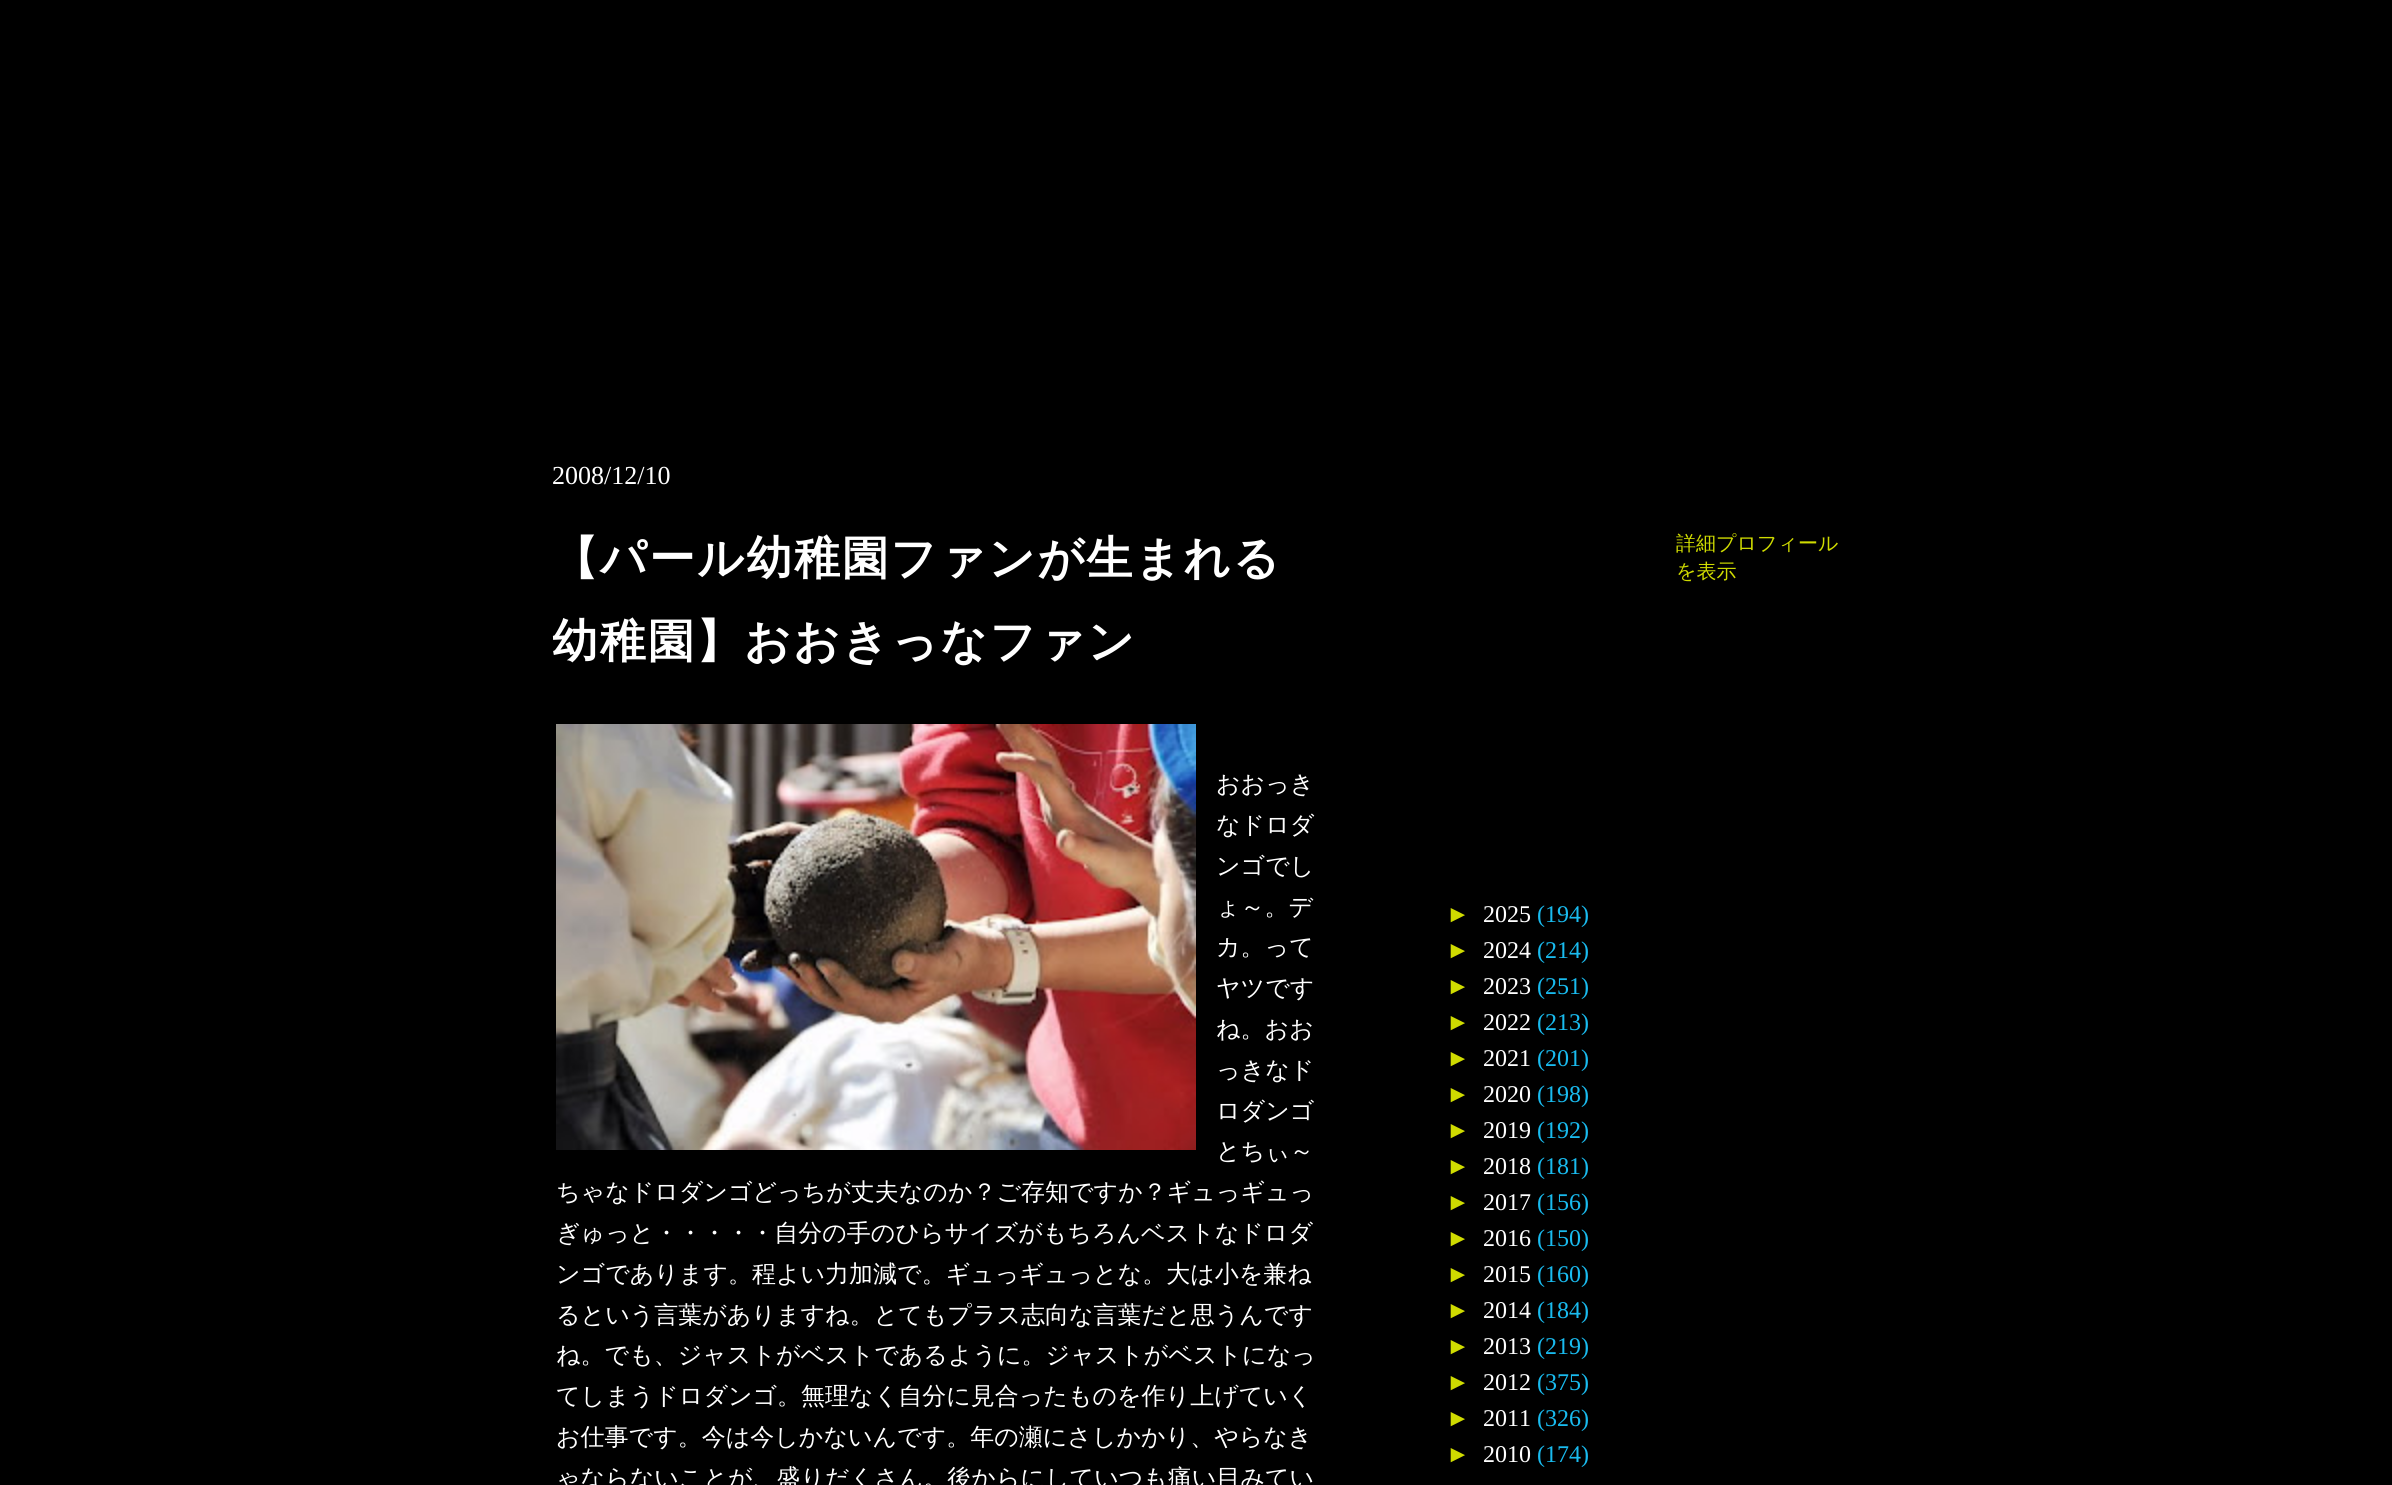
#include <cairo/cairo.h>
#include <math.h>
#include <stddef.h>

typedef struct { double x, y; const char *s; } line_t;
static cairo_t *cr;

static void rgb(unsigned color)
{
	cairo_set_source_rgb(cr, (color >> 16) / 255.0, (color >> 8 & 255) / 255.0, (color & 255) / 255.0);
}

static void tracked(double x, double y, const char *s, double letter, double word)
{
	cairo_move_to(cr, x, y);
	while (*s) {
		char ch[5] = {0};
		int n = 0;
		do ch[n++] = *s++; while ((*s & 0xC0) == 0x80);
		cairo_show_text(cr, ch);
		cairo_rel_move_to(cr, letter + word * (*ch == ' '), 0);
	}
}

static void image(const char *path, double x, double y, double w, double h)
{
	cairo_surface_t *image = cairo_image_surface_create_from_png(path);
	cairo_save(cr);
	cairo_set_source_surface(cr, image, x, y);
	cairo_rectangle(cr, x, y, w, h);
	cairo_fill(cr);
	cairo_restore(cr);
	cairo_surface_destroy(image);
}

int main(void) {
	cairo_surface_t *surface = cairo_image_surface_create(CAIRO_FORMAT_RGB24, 2392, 1485);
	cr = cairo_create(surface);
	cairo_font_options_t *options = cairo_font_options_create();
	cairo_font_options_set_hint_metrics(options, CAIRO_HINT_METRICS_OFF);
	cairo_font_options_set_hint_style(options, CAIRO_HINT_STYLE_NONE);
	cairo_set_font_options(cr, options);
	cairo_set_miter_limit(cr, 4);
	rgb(0x000000);
	cairo_paint(cr);
	image("img/1.png", 556, 724, 640, 426);
	cairo_select_font_face(cr, "Liberation Serif", CAIRO_FONT_SLANT_NORMAL, CAIRO_FONT_WEIGHT_NORMAL);
	cairo_set_font_size(cr, 26);
	rgb(0xffffff);
	cairo_move_to(cr, 552, 484);
	cairo_show_text(cr, "2008/12/10");
	cairo_select_font_face(cr, "WenQuanYi Zen Hei", CAIRO_FONT_SLANT_NORMAL, CAIRO_FONT_WEIGHT_BOLD);
	cairo_set_font_size(cr, 46);
	tracked(552, 574, "【パール幼稚園ファンが生まれる", 2, 0);
	tracked(552, 657, "幼稚園】おおきっなファン", 2, 0);
	cairo_select_font_face(cr, "WenQuanYi Zen Hei Medium", CAIRO_FONT_SLANT_NORMAL, CAIRO_FONT_WEIGHT_NORMAL);
	cairo_set_font_size(cr, 24);
	{
		static const line_t items[] = {
			{1216, 792, "おおっき"},
			{1216, 833, "なドロダ"},
			{1216, 874, "ンゴでし"},
			{1216, 915, "ょ～。デ"},
			{1216, 955, "カ。って"},
			{1216, 996, "ヤツです"},
			{1216, 1037, "ね。おお"},
			{1216, 1078, "っきなド"},
			{1216, 1119, "ロダンゴ"},
			{1216, 1159, "とちぃ～"},
			{556, 1200, "ちゃなドロダンゴどっちが丈夫なのか？ご存知ですか？ギュっギュっ"},
			{556, 1241, "ぎゅっと・・・・・自分の手のひらサイズがもちろんベストなドロダ"},
			{556, 1282, "ンゴであります。程よい力加減で。ギュっギュっとな。大は小を兼ね"},
			{556, 1323, "るという言葉がありますね。とてもプラス志向な言葉だと思うんです"},
			{556, 1363, "ね。でも、ジャストがベストであるように。ジャストがベストになっ"},
			{556, 1404, "てしまうドロダンゴ。無理なく自分に見合ったものを作り上げていく"},
			{556, 1445, "お仕事です。今は今しかないんです。年の瀬にさしかかり、やらなき"},
			{556, 1486, "ゃならないことが、盛りだくさん。後からにしていつも痛い目みてい"},
		};
		for (size_t i = 0; i < sizeof items / sizeof *items; i++) {
			cairo_move_to(cr, items[i].x, items[i].y);
			cairo_show_text(cr, items[i].s);
		}
	}
	cairo_set_font_size(cr, 20);
	rgb(0xcfdb00);
	cairo_move_to(cr, 1676, 550);
	cairo_show_text(cr, "詳細プロフィール");
	cairo_move_to(cr, 1676, 578);
	cairo_show_text(cr, "を表示");
	cairo_select_font_face(cr, "Liberation Sans", CAIRO_FONT_SLANT_NORMAL, CAIRO_FONT_WEIGHT_NORMAL);
	cairo_set_font_size(cr, 24);
	cairo_move_to(cr, 1446, 922);
	cairo_show_text(cr, "►");
	cairo_select_font_face(cr, "Liberation Serif", CAIRO_FONT_SLANT_NORMAL, CAIRO_FONT_WEIGHT_NORMAL);
	rgb(0xffffff);
	cairo_move_to(cr, 1483, 922);
	cairo_show_text(cr, "2025");
	rgb(0x19bbef);
	cairo_move_to(cr, 1537, 922);
	cairo_show_text(cr, "(194)");
	cairo_select_font_face(cr, "Liberation Sans", CAIRO_FONT_SLANT_NORMAL, CAIRO_FONT_WEIGHT_NORMAL);
	rgb(0xcfdb00);
	cairo_move_to(cr, 1446, 958);
	cairo_show_text(cr, "►");
	cairo_select_font_face(cr, "Liberation Serif", CAIRO_FONT_SLANT_NORMAL, CAIRO_FONT_WEIGHT_NORMAL);
	rgb(0xffffff);
	cairo_move_to(cr, 1483, 958);
	cairo_show_text(cr, "2024");
	rgb(0x19bbef);
	cairo_move_to(cr, 1537, 958);
	cairo_show_text(cr, "(214)");
	cairo_select_font_face(cr, "Liberation Sans", CAIRO_FONT_SLANT_NORMAL, CAIRO_FONT_WEIGHT_NORMAL);
	rgb(0xcfdb00);
	cairo_move_to(cr, 1446, 994);
	cairo_show_text(cr, "►");
	cairo_select_font_face(cr, "Liberation Serif", CAIRO_FONT_SLANT_NORMAL, CAIRO_FONT_WEIGHT_NORMAL);
	rgb(0xffffff);
	cairo_move_to(cr, 1483, 994);
	cairo_show_text(cr, "2023");
	rgb(0x19bbef);
	cairo_move_to(cr, 1537, 994);
	cairo_show_text(cr, "(251)");
	cairo_select_font_face(cr, "Liberation Sans", CAIRO_FONT_SLANT_NORMAL, CAIRO_FONT_WEIGHT_NORMAL);
	rgb(0xcfdb00);
	cairo_move_to(cr, 1446, 1030);
	cairo_show_text(cr, "►");
	cairo_select_font_face(cr, "Liberation Serif", CAIRO_FONT_SLANT_NORMAL, CAIRO_FONT_WEIGHT_NORMAL);
	rgb(0xffffff);
	cairo_move_to(cr, 1483, 1030);
	cairo_show_text(cr, "2022");
	rgb(0x19bbef);
	cairo_move_to(cr, 1537, 1030);
	cairo_show_text(cr, "(213)");
	cairo_select_font_face(cr, "Liberation Sans", CAIRO_FONT_SLANT_NORMAL, CAIRO_FONT_WEIGHT_NORMAL);
	rgb(0xcfdb00);
	cairo_move_to(cr, 1446, 1066);
	cairo_show_text(cr, "►");
	cairo_select_font_face(cr, "Liberation Serif", CAIRO_FONT_SLANT_NORMAL, CAIRO_FONT_WEIGHT_NORMAL);
	rgb(0xffffff);
	cairo_move_to(cr, 1483, 1066);
	cairo_show_text(cr, "2021");
	rgb(0x19bbef);
	cairo_move_to(cr, 1537, 1066);
	cairo_show_text(cr, "(201)");
	cairo_select_font_face(cr, "Liberation Sans", CAIRO_FONT_SLANT_NORMAL, CAIRO_FONT_WEIGHT_NORMAL);
	rgb(0xcfdb00);
	cairo_move_to(cr, 1446, 1102);
	cairo_show_text(cr, "►");
	cairo_select_font_face(cr, "Liberation Serif", CAIRO_FONT_SLANT_NORMAL, CAIRO_FONT_WEIGHT_NORMAL);
	rgb(0xffffff);
	cairo_move_to(cr, 1483, 1102);
	cairo_show_text(cr, "2020");
	rgb(0x19bbef);
	cairo_move_to(cr, 1537, 1102);
	cairo_show_text(cr, "(198)");
	cairo_select_font_face(cr, "Liberation Sans", CAIRO_FONT_SLANT_NORMAL, CAIRO_FONT_WEIGHT_NORMAL);
	rgb(0xcfdb00);
	cairo_move_to(cr, 1446, 1138);
	cairo_show_text(cr, "►");
	cairo_select_font_face(cr, "Liberation Serif", CAIRO_FONT_SLANT_NORMAL, CAIRO_FONT_WEIGHT_NORMAL);
	rgb(0xffffff);
	cairo_move_to(cr, 1483, 1138);
	cairo_show_text(cr, "2019");
	rgb(0x19bbef);
	cairo_move_to(cr, 1537, 1138);
	cairo_show_text(cr, "(192)");
	cairo_select_font_face(cr, "Liberation Sans", CAIRO_FONT_SLANT_NORMAL, CAIRO_FONT_WEIGHT_NORMAL);
	rgb(0xcfdb00);
	cairo_move_to(cr, 1446, 1174);
	cairo_show_text(cr, "►");
	cairo_select_font_face(cr, "Liberation Serif", CAIRO_FONT_SLANT_NORMAL, CAIRO_FONT_WEIGHT_NORMAL);
	rgb(0xffffff);
	cairo_move_to(cr, 1483, 1174);
	cairo_show_text(cr, "2018");
	rgb(0x19bbef);
	cairo_move_to(cr, 1537, 1174);
	cairo_show_text(cr, "(181)");
	cairo_select_font_face(cr, "Liberation Sans", CAIRO_FONT_SLANT_NORMAL, CAIRO_FONT_WEIGHT_NORMAL);
	rgb(0xcfdb00);
	cairo_move_to(cr, 1446, 1210);
	cairo_show_text(cr, "►");
	cairo_select_font_face(cr, "Liberation Serif", CAIRO_FONT_SLANT_NORMAL, CAIRO_FONT_WEIGHT_NORMAL);
	rgb(0xffffff);
	cairo_move_to(cr, 1483, 1210);
	cairo_show_text(cr, "2017");
	rgb(0x19bbef);
	cairo_move_to(cr, 1537, 1210);
	cairo_show_text(cr, "(156)");
	cairo_select_font_face(cr, "Liberation Sans", CAIRO_FONT_SLANT_NORMAL, CAIRO_FONT_WEIGHT_NORMAL);
	rgb(0xcfdb00);
	cairo_move_to(cr, 1446, 1246);
	cairo_show_text(cr, "►");
	cairo_select_font_face(cr, "Liberation Serif", CAIRO_FONT_SLANT_NORMAL, CAIRO_FONT_WEIGHT_NORMAL);
	rgb(0xffffff);
	cairo_move_to(cr, 1483, 1246);
	cairo_show_text(cr, "2016");
	rgb(0x19bbef);
	cairo_move_to(cr, 1537, 1246);
	cairo_show_text(cr, "(150)");
	cairo_select_font_face(cr, "Liberation Sans", CAIRO_FONT_SLANT_NORMAL, CAIRO_FONT_WEIGHT_NORMAL);
	rgb(0xcfdb00);
	cairo_move_to(cr, 1446, 1282);
	cairo_show_text(cr, "►");
	cairo_select_font_face(cr, "Liberation Serif", CAIRO_FONT_SLANT_NORMAL, CAIRO_FONT_WEIGHT_NORMAL);
	rgb(0xffffff);
	cairo_move_to(cr, 1483, 1282);
	cairo_show_text(cr, "2015");
	rgb(0x19bbef);
	cairo_move_to(cr, 1537, 1282);
	cairo_show_text(cr, "(160)");
	cairo_select_font_face(cr, "Liberation Sans", CAIRO_FONT_SLANT_NORMAL, CAIRO_FONT_WEIGHT_NORMAL);
	rgb(0xcfdb00);
	cairo_move_to(cr, 1446, 1318);
	cairo_show_text(cr, "►");
	cairo_select_font_face(cr, "Liberation Serif", CAIRO_FONT_SLANT_NORMAL, CAIRO_FONT_WEIGHT_NORMAL);
	rgb(0xffffff);
	cairo_move_to(cr, 1483, 1318);
	cairo_show_text(cr, "2014");
	rgb(0x19bbef);
	cairo_move_to(cr, 1537, 1318);
	cairo_show_text(cr, "(184)");
	cairo_select_font_face(cr, "Liberation Sans", CAIRO_FONT_SLANT_NORMAL, CAIRO_FONT_WEIGHT_NORMAL);
	rgb(0xcfdb00);
	cairo_move_to(cr, 1446, 1354);
	cairo_show_text(cr, "►");
	cairo_select_font_face(cr, "Liberation Serif", CAIRO_FONT_SLANT_NORMAL, CAIRO_FONT_WEIGHT_NORMAL);
	rgb(0xffffff);
	cairo_move_to(cr, 1483, 1354);
	cairo_show_text(cr, "2013");
	rgb(0x19bbef);
	cairo_move_to(cr, 1537, 1354);
	cairo_show_text(cr, "(219)");
	cairo_select_font_face(cr, "Liberation Sans", CAIRO_FONT_SLANT_NORMAL, CAIRO_FONT_WEIGHT_NORMAL);
	rgb(0xcfdb00);
	cairo_move_to(cr, 1446, 1390);
	cairo_show_text(cr, "►");
	cairo_select_font_face(cr, "Liberation Serif", CAIRO_FONT_SLANT_NORMAL, CAIRO_FONT_WEIGHT_NORMAL);
	rgb(0xffffff);
	cairo_move_to(cr, 1483, 1390);
	cairo_show_text(cr, "2012");
	rgb(0x19bbef);
	cairo_move_to(cr, 1537, 1390);
	cairo_show_text(cr, "(375)");
	cairo_select_font_face(cr, "Liberation Sans", CAIRO_FONT_SLANT_NORMAL, CAIRO_FONT_WEIGHT_NORMAL);
	rgb(0xcfdb00);
	cairo_move_to(cr, 1446, 1426);
	cairo_show_text(cr, "►");
	cairo_select_font_face(cr, "Liberation Serif", CAIRO_FONT_SLANT_NORMAL, CAIRO_FONT_WEIGHT_NORMAL);
	rgb(0xffffff);
	cairo_move_to(cr, 1483, 1426);
	cairo_show_text(cr, "2011");
	rgb(0x19bbef);
	cairo_move_to(cr, 1537, 1426);
	cairo_show_text(cr, "(326)");
	cairo_select_font_face(cr, "Liberation Sans", CAIRO_FONT_SLANT_NORMAL, CAIRO_FONT_WEIGHT_NORMAL);
	rgb(0xcfdb00);
	cairo_move_to(cr, 1446, 1462);
	cairo_show_text(cr, "►");
	cairo_select_font_face(cr, "Liberation Serif", CAIRO_FONT_SLANT_NORMAL, CAIRO_FONT_WEIGHT_NORMAL);
	rgb(0xffffff);
	cairo_move_to(cr, 1483, 1462);
	cairo_show_text(cr, "2010");
	rgb(0x19bbef);
	cairo_move_to(cr, 1537, 1462);
	cairo_show_text(cr, "(174)");
	cairo_surface_write_to_png(surface, "page.png");
	cairo_font_options_destroy(options);
	cairo_destroy(cr);
	cairo_surface_destroy(surface);
	return 0;
}
